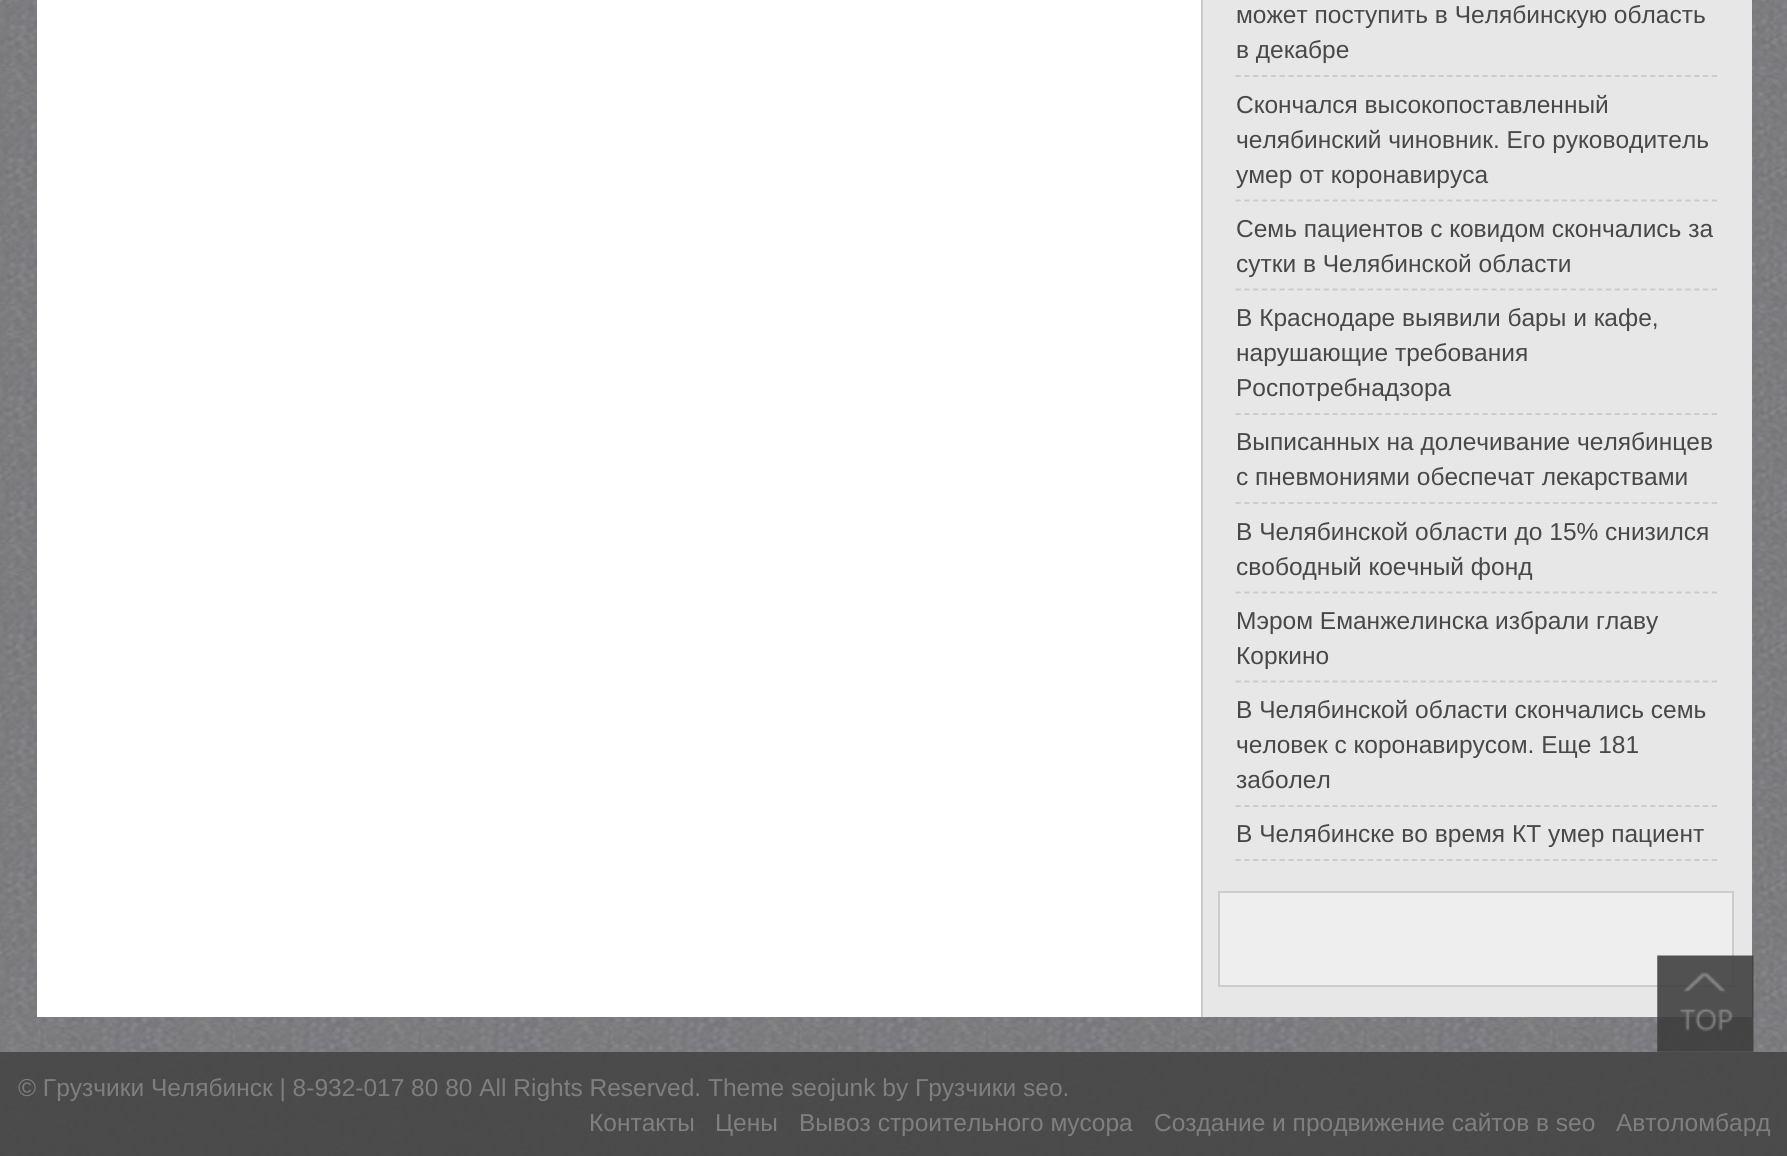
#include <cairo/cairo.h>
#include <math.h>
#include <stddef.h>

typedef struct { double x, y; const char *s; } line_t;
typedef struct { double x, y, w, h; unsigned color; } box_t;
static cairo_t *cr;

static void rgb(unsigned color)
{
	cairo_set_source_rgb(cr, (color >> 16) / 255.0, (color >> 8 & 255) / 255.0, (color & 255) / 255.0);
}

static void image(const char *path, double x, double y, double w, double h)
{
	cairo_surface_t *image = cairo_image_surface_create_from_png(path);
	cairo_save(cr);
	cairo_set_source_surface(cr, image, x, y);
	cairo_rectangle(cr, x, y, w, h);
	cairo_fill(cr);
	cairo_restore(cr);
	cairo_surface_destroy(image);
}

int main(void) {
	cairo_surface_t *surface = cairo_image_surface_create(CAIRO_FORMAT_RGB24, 1787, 1156);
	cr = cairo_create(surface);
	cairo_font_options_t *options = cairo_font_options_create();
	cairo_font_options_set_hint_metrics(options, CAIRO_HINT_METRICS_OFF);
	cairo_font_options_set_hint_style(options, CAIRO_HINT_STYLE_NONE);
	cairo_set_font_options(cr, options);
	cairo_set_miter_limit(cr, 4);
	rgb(0xffffff);
	cairo_paint(cr);
	image("img/1.png", 0, 0, 1787, 1156);
	{
		static const box_t items[] = {
			{1203, 0, 549, 1017, 0xe8e7e7},
			{37, 0, 1164, 1017, 0xffffff},
			{1201, 0, 2, 1017, 0xc9c9c9},
		};
		for (size_t i = 0; i < sizeof items / sizeof *items; i++) {
			rgb(items[i].color);
			cairo_rectangle(cr, items[i].x, items[i].y, items[i].w, items[i].h);
			cairo_fill(cr);
		}
	}
	cairo_new_path(cr);
	cairo_move_to(cr, 1235.5, 76);
	cairo_line_to(cr, 1717, 76);
	cairo_set_line_width(cr, 1.8);
	cairo_set_dash(cr, (double[]){5.25, 3.57}, 2, 0);
	cairo_stroke(cr);
	cairo_new_path(cr);
	cairo_move_to(cr, 1235.5, 200.5);
	cairo_line_to(cr, 1717, 200.5);
	cairo_stroke(cr);
	cairo_new_path(cr);
	cairo_move_to(cr, 1235.5, 289.5);
	cairo_line_to(cr, 1717, 289.5);
	cairo_stroke(cr);
	cairo_new_path(cr);
	cairo_move_to(cr, 1235.5, 414);
	cairo_line_to(cr, 1717, 414);
	cairo_stroke(cr);
	cairo_new_path(cr);
	cairo_move_to(cr, 1235.5, 503);
	cairo_line_to(cr, 1717, 503);
	cairo_stroke(cr);
	cairo_new_path(cr);
	cairo_move_to(cr, 1235.5, 592.5);
	cairo_line_to(cr, 1717, 592.5);
	cairo_stroke(cr);
	cairo_new_path(cr);
	cairo_move_to(cr, 1235.5, 681.5);
	cairo_line_to(cr, 1717, 681.5);
	cairo_stroke(cr);
	cairo_new_path(cr);
	cairo_move_to(cr, 1235.5, 806);
	cairo_line_to(cr, 1717, 806);
	cairo_stroke(cr);
	cairo_new_path(cr);
	cairo_move_to(cr, 1235.5, 860);
	cairo_line_to(cr, 1717, 860);
	cairo_stroke(cr);
	rgb(0xeeeeee);
	cairo_rectangle(cr, 1219, 892, 514, 94);
	cairo_fill_preserve(cr);
	rgb(0xcccccc);
	cairo_set_line_width(cr, 2);
	cairo_set_dash(cr, NULL, 0, 0);
	cairo_stroke(cr);
	image("img/2.png", 1657, 955, 97, 97);
	cairo_set_source_rgba(cr, 0.267, 0.267, 0.267, 0.88);
	cairo_rectangle(cr, 0, 1052, 1787, 104);
	cairo_fill(cr);
	cairo_select_font_face(cr, "Liberation Sans", CAIRO_FONT_SLANT_NORMAL, CAIRO_FONT_WEIGHT_NORMAL);
	cairo_set_font_size(cr, 24.5);
	rgb(0x484848);
	{
		static const line_t items[] = {
			{1236, 23, "может поступить в Челябинскую область"},
			{1236, 58, "в декабре"},
			{1236, 113, "Скончался высокопоставленный"},
			{1236, 148, "челябинский чиновник. Его руководитель"},
			{1236, 183, "умер от коронавируса"},
			{1236, 237, "Семь пациентов с ковидом скончались за"},
			{1236, 272, "сутки в Челябинской области"},
			{1236, 326, "В Краснодаре выявили бары и кафе,"},
			{1236, 361, "нарушающие требования"},
			{1236, 396, "Роспотребнадзора"},
			{1236, 450, "Выписанных на долечивание челябинцев"},
			{1236, 485, "с пневмониями обеспечат лекарствами"},
			{1236, 540, "В Челябинской области до 15% снизился"},
			{1236, 575, "свободный коечный фонд"},
			{1236, 629, "Мэром Еманжелинска избрали главу"},
			{1236, 664, "Коркино"},
			{1236, 718, "В Челябинской области скончались семь"},
			{1236, 753, "человек с коронавирусом. Еще 181"},
			{1236, 788, "заболел"},
			{1236, 842, "В Челябинске во время КТ умер пациент"},
		};
		for (size_t i = 0; i < sizeof items / sizeof *items; i++) {
			cairo_move_to(cr, items[i].x, items[i].y);
			cairo_show_text(cr, items[i].s);
		}
	}
	rgb(0x7f7f7f);
	{
		static const line_t items[] = {
			{18, 1096, "© Грузчики Челябинск | 8-932-017 80 80 All Rights Reserved. Theme seojunk by Грузчики seo."},
			{589, 1131, "Контакты"},
			{715, 1131, "Цены"},
			{799, 1131, "Вывоз строительного мусора"},
			{1154, 1131, "Создание и продвижение сайтов в seo"},
			{1616, 1131, "Автоломбард"},
		};
		for (size_t i = 0; i < sizeof items / sizeof *items; i++) {
			cairo_move_to(cr, items[i].x, items[i].y);
			cairo_show_text(cr, items[i].s);
		}
	}
	cairo_surface_write_to_png(surface, "page.png");
	cairo_font_options_destroy(options);
	cairo_destroy(cr);
	cairo_surface_destroy(surface);
	return 0;
}
